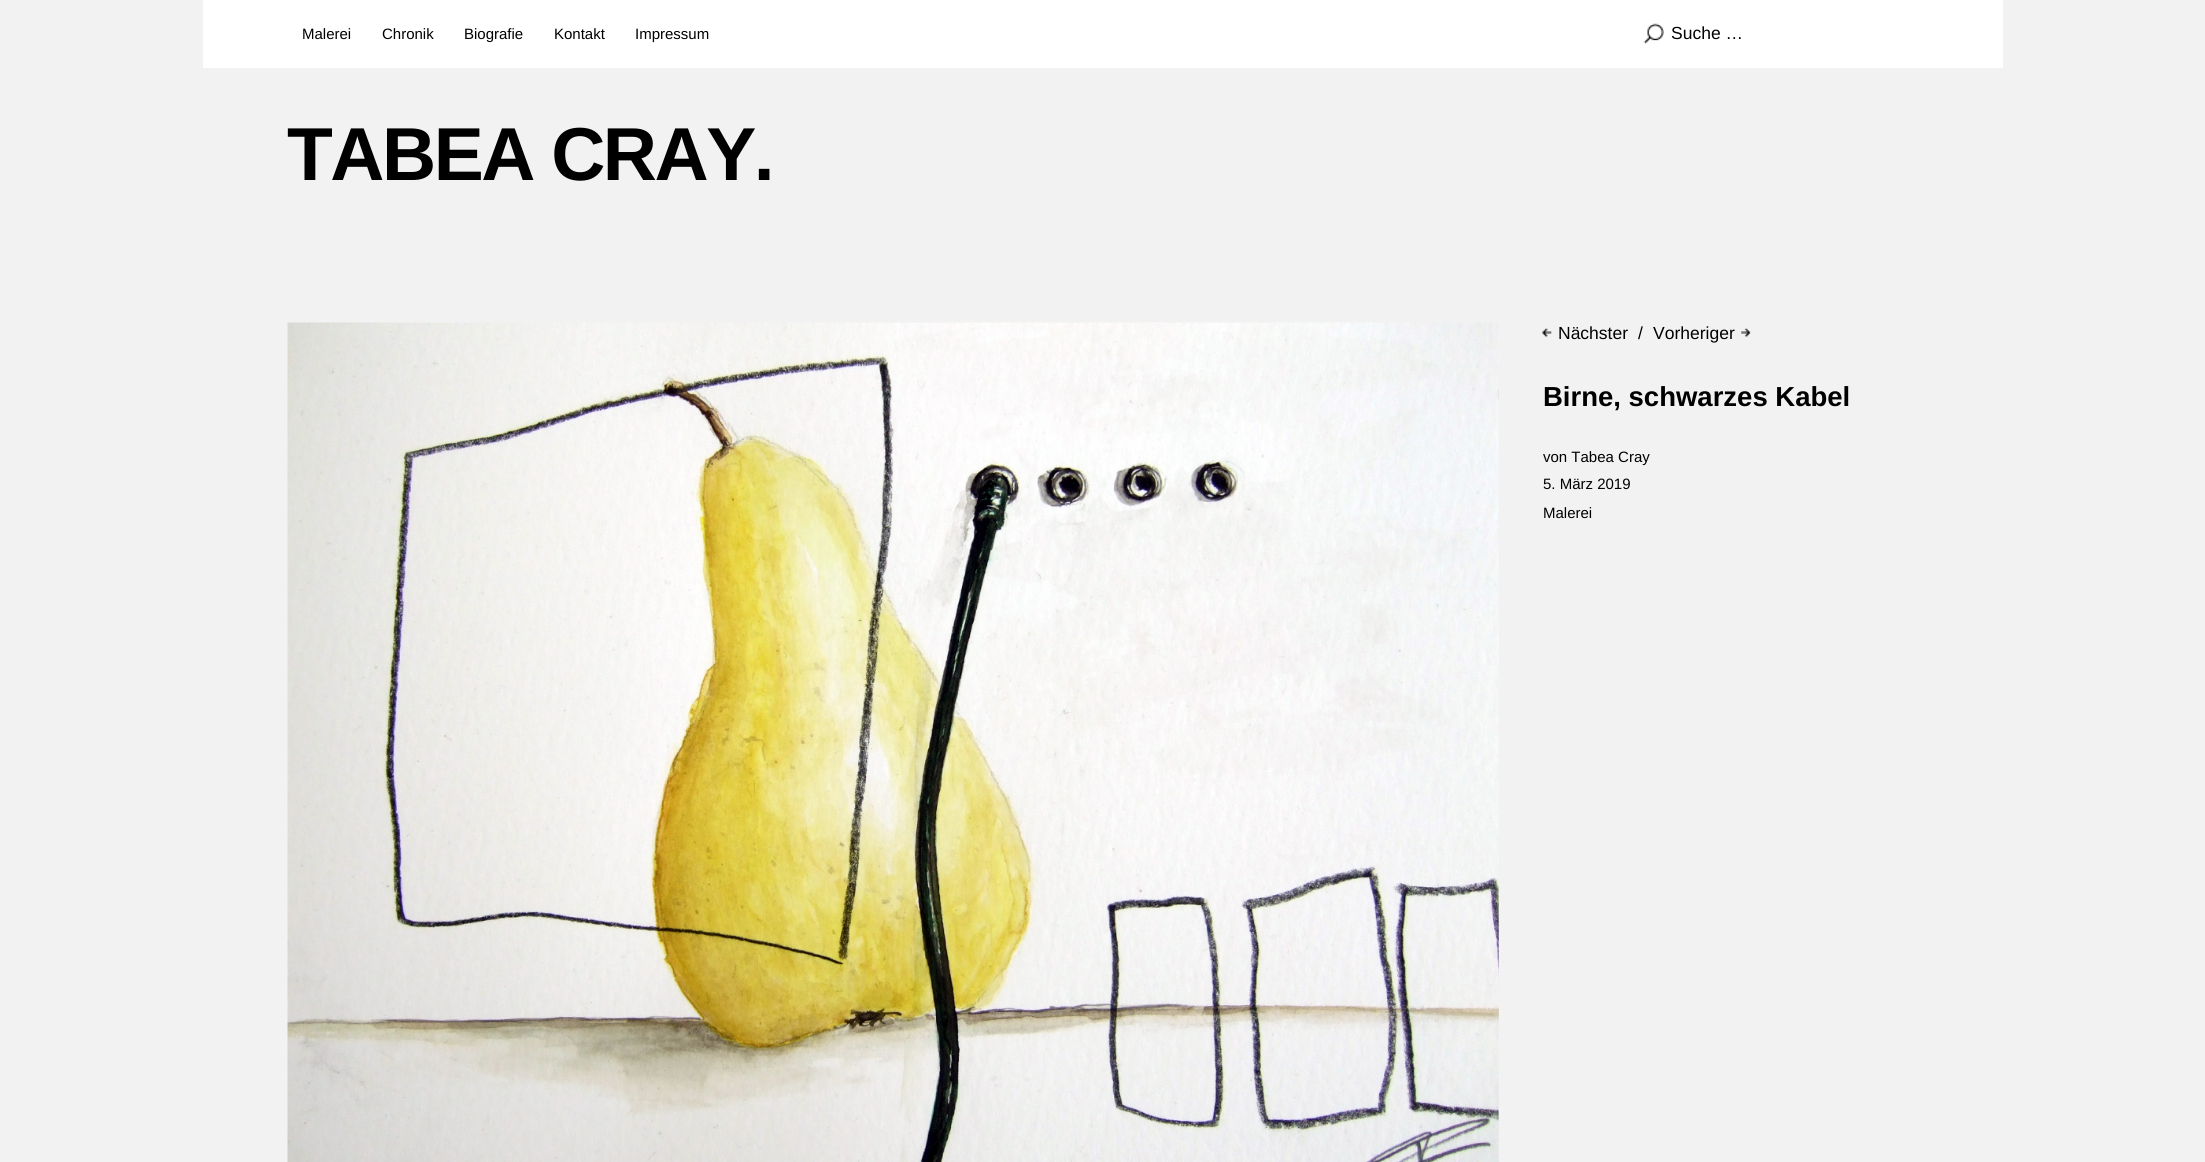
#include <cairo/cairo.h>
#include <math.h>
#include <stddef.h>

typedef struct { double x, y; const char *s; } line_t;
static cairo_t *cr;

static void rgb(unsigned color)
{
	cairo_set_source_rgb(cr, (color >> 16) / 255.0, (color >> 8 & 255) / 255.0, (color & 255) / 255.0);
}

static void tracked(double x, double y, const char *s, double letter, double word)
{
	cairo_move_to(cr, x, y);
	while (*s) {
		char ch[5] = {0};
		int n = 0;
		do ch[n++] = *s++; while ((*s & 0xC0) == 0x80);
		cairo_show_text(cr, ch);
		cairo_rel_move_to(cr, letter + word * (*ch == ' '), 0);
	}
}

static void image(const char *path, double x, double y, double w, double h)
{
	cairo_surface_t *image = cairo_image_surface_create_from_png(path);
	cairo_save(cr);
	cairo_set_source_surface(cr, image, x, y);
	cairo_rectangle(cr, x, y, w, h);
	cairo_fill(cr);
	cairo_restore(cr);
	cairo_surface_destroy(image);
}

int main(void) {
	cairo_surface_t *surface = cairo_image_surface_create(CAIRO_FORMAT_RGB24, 2205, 1162);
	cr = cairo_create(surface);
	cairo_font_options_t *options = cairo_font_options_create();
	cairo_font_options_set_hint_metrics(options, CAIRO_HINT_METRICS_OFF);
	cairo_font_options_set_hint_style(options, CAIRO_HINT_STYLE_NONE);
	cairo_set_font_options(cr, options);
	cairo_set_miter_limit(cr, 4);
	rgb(0xf2f2f2);
	cairo_paint(cr);
	rgb(0xffffff);
	cairo_rectangle(cr, 203, 0, 1800, 68);
	cairo_fill(cr);
	image("img/1.png", 1643, 23, 21, 21);
	image("img/2.png", 287, 322, 1212, 840);
	image("img/3.png", 1542, 328, 10, 10);
	image("img/4.png", 1741, 328, 10, 10);
	cairo_select_font_face(cr, "Liberation Sans", CAIRO_FONT_SLANT_NORMAL, CAIRO_FONT_WEIGHT_NORMAL);
	cairo_set_font_size(cr, 15);
	rgb(0x000000);
	{
		static const line_t items[] = {
			{302, 39, "Malerei"},
			{382, 39, "Chronik"},
			{464, 39, "Biografie"},
			{554, 39, "Kontakt"},
			{635, 39, "Impressum"},
		};
		for (size_t i = 0; i < sizeof items / sizeof *items; i++) {
			cairo_move_to(cr, items[i].x, items[i].y);
			cairo_show_text(cr, items[i].s);
		}
	}
	cairo_set_font_size(cr, 17.5);
	cairo_move_to(cr, 1671, 39);
	cairo_show_text(cr, "Suche …");
	cairo_select_font_face(cr, "Liberation Sans", CAIRO_FONT_SLANT_NORMAL, CAIRO_FONT_WEIGHT_BOLD);
	cairo_set_font_size(cr, 75);
	tracked(287, 180, "TABEA CRAY.", -2.5, 0);
	cairo_select_font_face(cr, "Liberation Sans", CAIRO_FONT_SLANT_NORMAL, CAIRO_FONT_WEIGHT_NORMAL);
	cairo_set_font_size(cr, 17.5);
	{
		static const line_t items[] = {
			{1558, 339, "Nächster"},
			{1638, 339, "/"},
			{1653, 339, "Vorheriger"},
		};
		for (size_t i = 0; i < sizeof items / sizeof *items; i++) {
			cairo_move_to(cr, items[i].x, items[i].y);
			cairo_show_text(cr, items[i].s);
		}
	}
	cairo_select_font_face(cr, "Liberation Sans", CAIRO_FONT_SLANT_NORMAL, CAIRO_FONT_WEIGHT_BOLD);
	cairo_set_font_size(cr, 27.5);
	cairo_move_to(cr, 1543, 406);
	cairo_show_text(cr, "Birne, schwarzes Kabel");
	cairo_select_font_face(cr, "Liberation Sans", CAIRO_FONT_SLANT_NORMAL, CAIRO_FONT_WEIGHT_NORMAL);
	cairo_set_font_size(cr, 15);
	{
		static const line_t items[] = {
			{1543, 462, "von Tabea Cray"},
			{1543, 489, "5. März 2019"},
			{1543, 518, "Malerei"},
		};
		for (size_t i = 0; i < sizeof items / sizeof *items; i++) {
			cairo_move_to(cr, items[i].x, items[i].y);
			cairo_show_text(cr, items[i].s);
		}
	}
	cairo_surface_write_to_png(surface, "page.png");
	cairo_font_options_destroy(options);
	cairo_destroy(cr);
	cairo_surface_destroy(surface);
	return 0;
}
